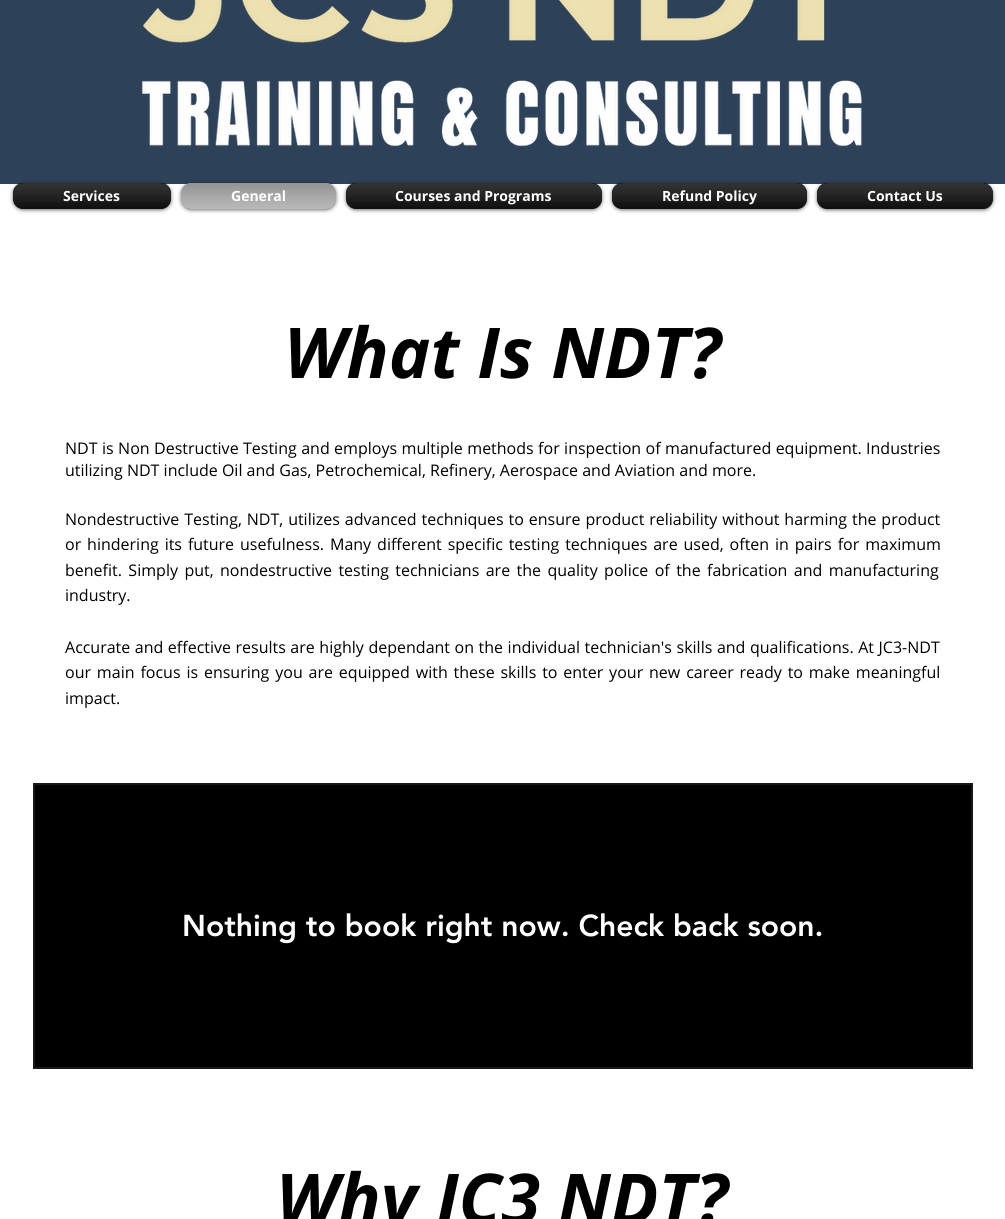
#include <cairo/cairo.h>
#include <math.h>
#include <stddef.h>

typedef struct { double x, y; const char *s; } line_t;
static cairo_t *cr;

static void rgb(unsigned color)
{
	cairo_set_source_rgb(cr, (color >> 16) / 255.0, (color >> 8 & 255) / 255.0, (color & 255) / 255.0);
}

static void tracked(double x, double y, const char *s, double letter, double word)
{
	cairo_move_to(cr, x, y);
	while (*s) {
		char ch[5] = {0};
		int n = 0;
		do ch[n++] = *s++; while ((*s & 0xC0) == 0x80);
		cairo_show_text(cr, ch);
		cairo_rel_move_to(cr, letter + word * (*ch == ' '), 0);
	}
}

static void rrect(double x, double y, double w, double h, double r)
{
	cairo_new_sub_path(cr);
	cairo_arc(cr, x + w - r, y + h - r, r, 0, M_PI / 2);
	cairo_arc(cr, x + r, y + h - r, r, M_PI / 2, M_PI);
	cairo_arc(cr, x + r, y + r, r, M_PI, 1.5 * M_PI);
	cairo_arc(cr, x + w - r, y + r, r, 1.5 * M_PI, 2 * M_PI);
	cairo_close_path(cr);
}

static void soft_shadow(double x, double y, double w, double h, double r, double blur, double alpha)
{
	cairo_push_group_with_content(cr, CAIRO_CONTENT_ALPHA);
	cairo_set_operator(cr, CAIRO_OPERATOR_SOURCE);
	for (int i = 15; i >= -15 && fmin(w, h) + blur * i / 3 > 0; i -= 2) {
		double e = blur * i / 6;
		cairo_set_source_rgba(cr, 0, 0, 0, alpha * erfc((i - 1) / 8.5) / 2);
		rrect(x - e, y - e, w + 2 * e, h + 2 * e, fmax(0, fmin(r + e + blur * .6, fmin(w, h) / 2 + e)));
		cairo_fill(cr);
	}
	cairo_pattern_t *soft = cairo_pop_group(cr);
	cairo_mask(cr, soft);
	cairo_pattern_destroy(soft);
}

static void image(const char *path, double x, double y, double w, double h)
{
	cairo_surface_t *image = cairo_image_surface_create_from_png(path);
	cairo_save(cr);
	cairo_set_source_surface(cr, image, x, y);
	cairo_rectangle(cr, x, y, w, h);
	cairo_fill(cr);
	cairo_restore(cr);
	cairo_surface_destroy(image);
}

int main(void) {
	cairo_surface_t *surface = cairo_image_surface_create(CAIRO_FORMAT_RGB24, 1005, 1219);
	cr = cairo_create(surface);
	cairo_font_options_t *options = cairo_font_options_create();
	cairo_font_options_set_hint_metrics(options, CAIRO_HINT_METRICS_OFF);
	cairo_font_options_set_hint_style(options, CAIRO_HINT_STYLE_NONE);
	cairo_set_font_options(cr, options);
	cairo_set_miter_limit(cr, 4);
	rgb(0x2d4159);
	cairo_paint(cr);
	image("img/1.png", 141, 0, 722, 148);
	rgb(0xffffff);
	cairo_rectangle(cr, 0, 184, 1005, 1035);
	cairo_fill(cr);
	rgb(0x000000);
	soft_shadow(13, 184, 158, 26, 10, 2, 0.6);
	rgb(0x000000);
	rrect(13, 183, 158, 26, 10);
	cairo_fill(cr);
	image("img/2.png", 13, 183, 158, 26);
	image("img/3.png", 14, 203, 156, 1);
	rgb(0x000000);
	soft_shadow(181, 184, 155, 26, 10, 2, 0.6);
	rgb(0xa9a9a9);
	rrect(181, 183, 155, 26, 10);
	cairo_fill(cr);
	image("img/4.png", 181, 183, 155, 25);
	image("img/5.png", 181, 183, 155, 26);
	rgb(0x000000);
	soft_shadow(346, 184, 256, 26, 10, 2, 0.6);
	rgb(0x000000);
	rrect(346, 183, 256, 26, 10);
	cairo_fill(cr);
	image("img/6.png", 346, 183, 256, 26);
	image("img/7.png", 347, 203, 254, 1);
	rgb(0x000000);
	soft_shadow(612, 184, 195, 26, 10, 2, 0.6);
	rgb(0x000000);
	rrect(612, 183, 195, 26, 10);
	cairo_fill(cr);
	image("img/8.png", 612, 183, 195, 26);
	image("img/9.png", 613, 203, 193, 1);
	rgb(0x000000);
	soft_shadow(817, 184, 176, 26, 10, 2, 0.6);
	rgb(0x000000);
	rrect(817, 183, 176, 26, 10);
	cairo_fill(cr);
	image("img/10.png", 817, 183, 176, 26);
	image("img/11.png", 818, 203, 174, 1);
	cairo_rectangle(cr, 34, 784, 938, 284);
	rgb(0x181818);
	cairo_stroke(cr);
	rgb(0x000000);
	cairo_rectangle(cr, 35, 785, 936, 282);
	cairo_fill(cr);
	cairo_select_font_face(cr, "Open Sans", CAIRO_FONT_SLANT_NORMAL, CAIRO_FONT_WEIGHT_BOLD);
	cairo_set_font_size(cr, 14);
	rgb(0xffffff);
	{
		static const line_t items[] = {
			{63, 201, "Services"},
			{231, 201, "General"},
			{395, 201, "Courses and Programs"},
			{662, 201, "Refund Policy"},
			{867, 201, "Contact Us"},
		};
		for (size_t i = 0; i < sizeof items / sizeof *items; i++) {
			cairo_move_to(cr, items[i].x, items[i].y);
			cairo_show_text(cr, items[i].s);
		}
	}
	cairo_select_font_face(cr, "Open Sans", CAIRO_FONT_SLANT_ITALIC, CAIRO_FONT_WEIGHT_BOLD);
	cairo_set_font_size(cr, 70);
	rgb(0x000000);
	cairo_move_to(cr, 284, 378);
	cairo_show_text(cr, "What Is NDT?");
	cairo_select_font_face(cr, "Open Sans", CAIRO_FONT_SLANT_NORMAL, CAIRO_FONT_WEIGHT_NORMAL);
	cairo_set_font_size(cr, 16);
	tracked(65, 454, "NDT is Non Destructive Testing and employs multiple methods for inspection of manufactured equipment. Industries", 0, 0.25);
	cairo_move_to(cr, 65, 476);
	cairo_show_text(cr, "utilizing NDT include Oil and Gas, Petrochemical, Refinery, Aerospace and Aviation and more.");
	tracked(65, 525, "Nondestructive Testing, NDT, utilizes advanced techniques to ensure product reliability without harming the product", 0, 0.75);
	tracked(65, 550, "or hindering its future usefulness. Many different specific testing techniques are used, often in pairs for maximum", 0, 1.75);
	tracked(65, 576, "benefit. Simply put, nondestructive testing technicians are the quality police of the fabrication and manufacturing", 0, 2.25);
	cairo_move_to(cr, 65, 601);
	cairo_show_text(cr, "industry.");
	tracked(65, 653, "Accurate and effective results are highly dependant on the individual technician's skills and qualifications. At JC3-NDT", 0, 0.4);
	tracked(65, 678, "our main focus is ensuring you are equipped with these skills to enter your new career ready to make meaningful", 0, 1.7);
	cairo_move_to(cr, 65, 704);
	cairo_show_text(cr, "impact.");
	cairo_select_font_face(cr, "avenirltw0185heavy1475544 Black", CAIRO_FONT_SLANT_NORMAL, CAIRO_FONT_WEIGHT_NORMAL);
	cairo_set_font_size(cr, 30);
	rgb(0xffffff);
	cairo_move_to(cr, 182, 936);
	cairo_show_text(cr, "Nothing to book right now. Check back soon.");
	cairo_select_font_face(cr, "Open Sans", CAIRO_FONT_SLANT_ITALIC, CAIRO_FONT_WEIGHT_BOLD);
	cairo_set_font_size(cr, 70);
	rgb(0x000000);
	cairo_move_to(cr, 276, 1224);
	cairo_show_text(cr, "Why JC3 NDT?");
	cairo_surface_write_to_png(surface, "page.png");
	cairo_font_options_destroy(options);
	cairo_destroy(cr);
	cairo_surface_destroy(surface);
	return 0;
}
